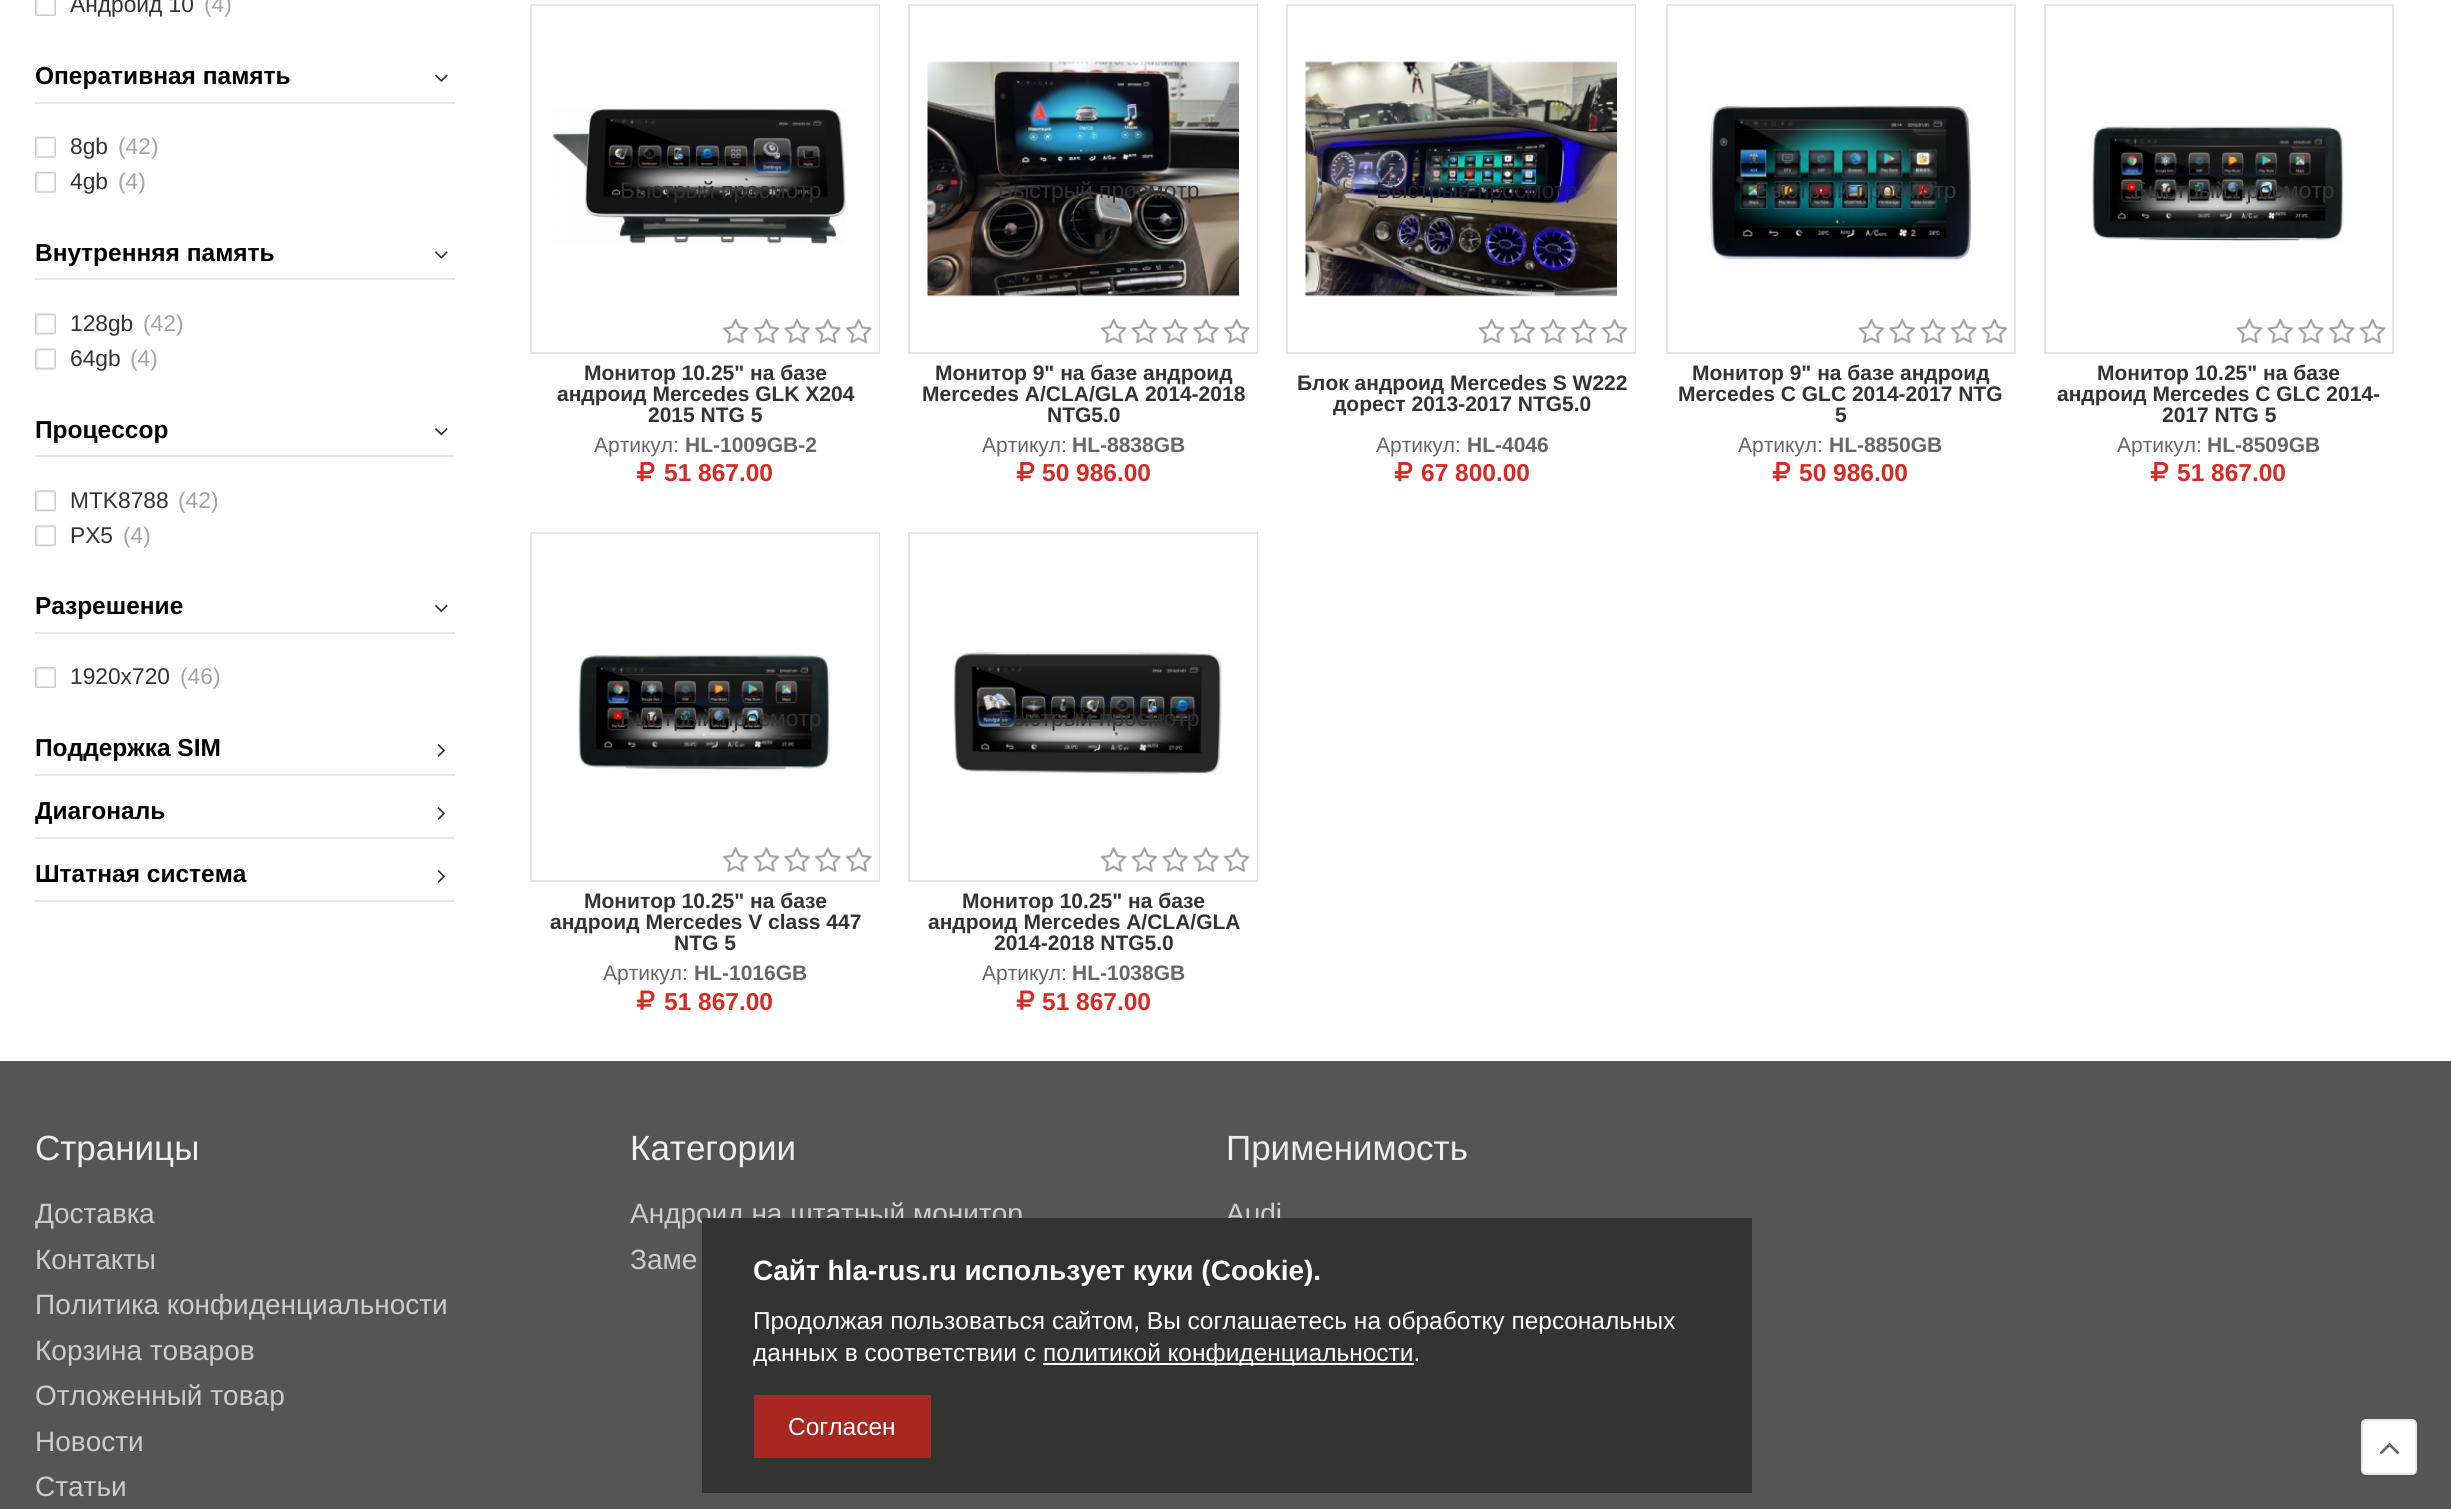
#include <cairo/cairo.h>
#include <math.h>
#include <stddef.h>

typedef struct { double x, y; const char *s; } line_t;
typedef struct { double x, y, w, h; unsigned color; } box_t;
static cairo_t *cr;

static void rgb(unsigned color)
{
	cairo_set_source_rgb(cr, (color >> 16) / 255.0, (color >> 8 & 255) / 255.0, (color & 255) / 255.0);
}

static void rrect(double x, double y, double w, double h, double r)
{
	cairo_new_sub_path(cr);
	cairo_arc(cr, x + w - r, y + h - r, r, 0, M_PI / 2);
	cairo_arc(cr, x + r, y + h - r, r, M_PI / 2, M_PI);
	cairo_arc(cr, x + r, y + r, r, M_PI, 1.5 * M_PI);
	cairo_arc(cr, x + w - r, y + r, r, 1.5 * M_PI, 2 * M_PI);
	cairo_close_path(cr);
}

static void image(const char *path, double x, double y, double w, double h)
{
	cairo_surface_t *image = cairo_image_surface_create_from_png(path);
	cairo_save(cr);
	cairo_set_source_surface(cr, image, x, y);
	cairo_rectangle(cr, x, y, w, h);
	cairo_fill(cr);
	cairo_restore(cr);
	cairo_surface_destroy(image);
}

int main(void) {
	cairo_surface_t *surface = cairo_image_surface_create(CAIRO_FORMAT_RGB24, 2451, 1509);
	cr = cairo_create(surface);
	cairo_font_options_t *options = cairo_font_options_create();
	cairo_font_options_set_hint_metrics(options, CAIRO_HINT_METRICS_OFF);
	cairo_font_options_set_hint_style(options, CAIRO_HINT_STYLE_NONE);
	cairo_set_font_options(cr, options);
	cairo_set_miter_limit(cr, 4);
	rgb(0xffffff);
	cairo_paint(cr);
	image("img/1.png", 35, 0, 21, 16);
	rgb(0xe8e8e8);
	cairo_rectangle(cr, 35, 102, 420, 2);
	cairo_fill(cr);
	image("img/2.png", 435, 74, 13, 8);
	image("img/3.png", 35, 136, 21, 22);
	image("img/3.png", 35, 171, 21, 22);
	cairo_rectangle(cr, 35, 278, 420, 2);
	cairo_fill(cr);
	image("img/4.png", 435, 251, 13, 8);
	image("img/5.png", 35, 313, 21, 22);
	image("img/5.png", 35, 348, 21, 22);
	cairo_rectangle(cr, 35, 455, 420, 2);
	cairo_fill(cr);
	image("img/6.png", 435, 428, 13, 8);
	image("img/7.png", 35, 490, 21, 22);
	image("img/7.png", 35, 525, 21, 22);
	cairo_rectangle(cr, 35, 632, 420, 2);
	cairo_fill(cr);
	image("img/8.png", 435, 604, 13, 9);
	image("img/9.png", 35, 667, 21, 21);
	cairo_rectangle(cr, 35, 774, 420, 2);
	cairo_fill(cr);
	image("img/10.png", 437, 744, 8, 13);
	cairo_rectangle(cr, 35, 837, 420, 2);
	cairo_fill(cr);
	image("img/10.png", 437, 807, 8, 13);
	cairo_rectangle(cr, 35, 900, 420, 2);
	cairo_fill(cr);
	image("img/10.png", 437, 870, 8, 13);
	{
		static const box_t items[] = {
			{530, 4, 350, 2, 0xe5e5e5},
			{879, 4, 1, 348, 0xe5e5e5},
			{530, 4, 2, 348, 0xe5e5e5},
		};
		for (size_t i = 0; i < sizeof items / sizeof *items; i++) {
			rgb(items[i].color);
			cairo_rectangle(cr, items[i].x, items[i].y, items[i].w, items[i].h);
			cairo_fill(cr);
		}
	}
	image("img/11.png", 552, 108, 294, 137);
	cairo_rectangle(cr, 530, 352, 350, 2);
	cairo_fill(cr);
	image("img/12.png", 722, 318, 150, 26);
	image("img/13.png", 637, 462, 18, 20);
	{
		static const box_t items[] = {
			{908, 4, 350, 2, 0xe5e5e5},
			{1257, 4, 1, 348, 0xe5e5e5},
			{908, 4, 2, 348, 0xe5e5e5},
		};
		for (size_t i = 0; i < sizeof items / sizeof *items; i++) {
			rgb(items[i].color);
			cairo_rectangle(cr, items[i].x, items[i].y, items[i].w, items[i].h);
			cairo_fill(cr);
		}
	}
	image("img/14.png", 927, 61, 312, 237);
	cairo_rectangle(cr, 908, 352, 350, 2);
	cairo_fill(cr);
	image("img/12.png", 1100, 318, 150, 26);
	image("img/15.png", 1016, 462, 19, 20);
	{
		static const box_t items[] = {
			{1286, 4, 350, 2, 0xe5e5e5},
			{1635, 4, 1, 348, 0xe5e5e5},
			{1286, 4, 2, 348, 0xe5e5e5},
		};
		for (size_t i = 0; i < sizeof items / sizeof *items; i++) {
			rgb(items[i].color);
			cairo_rectangle(cr, items[i].x, items[i].y, items[i].w, items[i].h);
			cairo_fill(cr);
		}
	}
	image("img/16.png", 1305, 59, 312, 238);
	cairo_rectangle(cr, 1286, 352, 350, 2);
	cairo_fill(cr);
	image("img/12.png", 1478, 318, 150, 26);
	image("img/15.png", 1394, 462, 19, 20);
	{
		static const box_t items[] = {
			{1666, 4, 350, 2, 0xe5e5e5},
			{2014, 4, 2, 348, 0xe5e5e5},
			{1666, 4, 2, 348, 0xe5e5e5},
		};
		for (size_t i = 0; i < sizeof items / sizeof *items; i++) {
			rgb(items[i].color);
			cairo_rectangle(cr, items[i].x, items[i].y, items[i].w, items[i].h);
			cairo_fill(cr);
		}
	}
	image("img/17.png", 1709, 105, 263, 155);
	cairo_rectangle(cr, 1666, 352, 350, 2);
	cairo_fill(cr);
	image("img/18.png", 1858, 318, 150, 26);
	image("img/15.png", 1772, 462, 19, 20);
	{
		static const box_t items[] = {
			{2044, 4, 350, 2, 0xe5e5e5},
			{2392, 4, 2, 348, 0xe5e5e5},
			{2044, 4, 2, 348, 0xe5e5e5},
		};
		for (size_t i = 0; i < sizeof items / sizeof *items; i++) {
			rgb(items[i].color);
			cairo_rectangle(cr, items[i].x, items[i].y, items[i].w, items[i].h);
			cairo_fill(cr);
		}
	}
	image("img/19.png", 2092, 125, 252, 117);
	cairo_rectangle(cr, 2044, 352, 350, 2);
	cairo_fill(cr);
	image("img/18.png", 2236, 318, 150, 26);
	image("img/15.png", 2150, 462, 19, 20);
	{
		static const box_t items[] = {
			{530, 532, 350, 2, 0xe5e5e5},
			{879, 532, 1, 348, 0xe5e5e5},
			{530, 532, 2, 348, 0xe5e5e5},
		};
		for (size_t i = 0; i < sizeof items / sizeof *items; i++) {
			rgb(items[i].color);
			cairo_rectangle(cr, items[i].x, items[i].y, items[i].w, items[i].h);
			cairo_fill(cr);
		}
	}
	image("img/20.png", 578, 654, 252, 116);
	cairo_rectangle(cr, 530, 880, 350, 2);
	cairo_fill(cr);
	image("img/21.png", 722, 847, 150, 25);
	image("img/22.png", 637, 990, 18, 20);
	{
		static const box_t items[] = {
			{908, 532, 350, 2, 0xe5e5e5},
			{1257, 532, 1, 348, 0xe5e5e5},
			{908, 532, 2, 348, 0xe5e5e5},
		};
		for (size_t i = 0; i < sizeof items / sizeof *items; i++) {
			rgb(items[i].color);
			cairo_rectangle(cr, items[i].x, items[i].y, items[i].w, items[i].h);
			cairo_fill(cr);
		}
	}
	image("img/23.png", 953, 652, 269, 123);
	cairo_rectangle(cr, 908, 880, 350, 2);
	cairo_fill(cr);
	image("img/21.png", 1100, 847, 150, 25);
	image("img/24.png", 1016, 990, 19, 20);
	rgb(0x555555);
	cairo_rectangle(cr, 0, 1061, 2451, 448);
	cairo_fill(cr);
	rgb(0xffffff);
	rrect(2362, 1420, 54, 54, 4);
	cairo_fill_preserve(cr);
	rgb(0xe8e8e8);
	cairo_stroke(cr);
	image("img/25.png", 2379, 1442, 21, 13);
	cairo_select_font_face(cr, "Liberation Sans", CAIRO_FONT_SLANT_NORMAL, CAIRO_FONT_WEIGHT_NORMAL);
	cairo_set_font_size(cr, 22.75);
	rgb(0x333333);
	cairo_move_to(cr, 70, 12);
	cairo_show_text(cr, "Андроид 10");
	rgb(0xa4a4a4);
	cairo_move_to(cr, 204, 12);
	cairo_show_text(cr, "(4)");
	cairo_select_font_face(cr, "Liberation Sans", CAIRO_FONT_SLANT_NORMAL, CAIRO_FONT_WEIGHT_BOLD);
	cairo_set_font_size(cr, 24.5);
	rgb(0x000000);
	cairo_move_to(cr, 35, 84);
	cairo_show_text(cr, "Оперативная память");
	cairo_select_font_face(cr, "Liberation Sans", CAIRO_FONT_SLANT_NORMAL, CAIRO_FONT_WEIGHT_NORMAL);
	cairo_set_font_size(cr, 22.75);
	rgb(0x333333);
	cairo_move_to(cr, 70, 154);
	cairo_show_text(cr, "8gb");
	rgb(0xa4a4a4);
	cairo_move_to(cr, 118, 154);
	cairo_show_text(cr, "(42)");
	rgb(0x333333);
	cairo_move_to(cr, 70, 189);
	cairo_show_text(cr, "4gb");
	rgb(0xa4a4a4);
	cairo_move_to(cr, 118, 189);
	cairo_show_text(cr, "(4)");
	cairo_select_font_face(cr, "Liberation Sans", CAIRO_FONT_SLANT_NORMAL, CAIRO_FONT_WEIGHT_BOLD);
	cairo_set_font_size(cr, 24.5);
	rgb(0x000000);
	cairo_move_to(cr, 35, 261);
	cairo_show_text(cr, "Внутренняя память");
	cairo_select_font_face(cr, "Liberation Sans", CAIRO_FONT_SLANT_NORMAL, CAIRO_FONT_WEIGHT_NORMAL);
	cairo_set_font_size(cr, 22.75);
	rgb(0x333333);
	cairo_move_to(cr, 70, 331);
	cairo_show_text(cr, "128gb");
	rgb(0xa4a4a4);
	cairo_move_to(cr, 143, 331);
	cairo_show_text(cr, "(42)");
	rgb(0x333333);
	cairo_move_to(cr, 70, 366);
	cairo_show_text(cr, "64gb");
	rgb(0xa4a4a4);
	cairo_move_to(cr, 130, 366);
	cairo_show_text(cr, "(4)");
	cairo_select_font_face(cr, "Liberation Sans", CAIRO_FONT_SLANT_NORMAL, CAIRO_FONT_WEIGHT_BOLD);
	cairo_set_font_size(cr, 24.5);
	rgb(0x000000);
	cairo_move_to(cr, 35, 438);
	cairo_show_text(cr, "Процессор");
	cairo_select_font_face(cr, "Liberation Sans", CAIRO_FONT_SLANT_NORMAL, CAIRO_FONT_WEIGHT_NORMAL);
	cairo_set_font_size(cr, 22.75);
	rgb(0x333333);
	cairo_move_to(cr, 70, 508);
	cairo_show_text(cr, "MTK8788");
	rgb(0xa4a4a4);
	cairo_move_to(cr, 178, 508);
	cairo_show_text(cr, "(42)");
	rgb(0x333333);
	cairo_move_to(cr, 70, 543);
	cairo_show_text(cr, "PX5");
	rgb(0xa4a4a4);
	cairo_move_to(cr, 123, 543);
	cairo_show_text(cr, "(4)");
	cairo_select_font_face(cr, "Liberation Sans", CAIRO_FONT_SLANT_NORMAL, CAIRO_FONT_WEIGHT_BOLD);
	cairo_set_font_size(cr, 24.5);
	rgb(0x000000);
	cairo_move_to(cr, 35, 614);
	cairo_show_text(cr, "Разрешение");
	cairo_select_font_face(cr, "Liberation Sans", CAIRO_FONT_SLANT_NORMAL, CAIRO_FONT_WEIGHT_NORMAL);
	cairo_set_font_size(cr, 22.75);
	rgb(0x333333);
	cairo_move_to(cr, 70, 684);
	cairo_show_text(cr, "1920х720");
	rgb(0xa4a4a4);
	cairo_move_to(cr, 180, 684);
	cairo_show_text(cr, "(46)");
	cairo_select_font_face(cr, "Liberation Sans", CAIRO_FONT_SLANT_NORMAL, CAIRO_FONT_WEIGHT_BOLD);
	cairo_set_font_size(cr, 24.5);
	rgb(0x000000);
	{
		static const line_t items[] = {
			{35, 756, "Поддержка SIM"},
			{35, 819, "Диагональ"},
			{35, 882, "Штатная система"},
		};
		for (size_t i = 0; i < sizeof items / sizeof *items; i++) {
			cairo_move_to(cr, items[i].x, items[i].y);
			cairo_show_text(cr, items[i].s);
		}
	}
	cairo_select_font_face(cr, "Liberation Sans", CAIRO_FONT_SLANT_NORMAL, CAIRO_FONT_WEIGHT_NORMAL);
	cairo_set_font_size(cr, 22.75);
	rgb(0x333333);
	cairo_move_to(cr, 620, 198);
	cairo_show_text(cr, "Быстрый просмотр");
	cairo_select_font_face(cr, "Liberation Sans", CAIRO_FONT_SLANT_NORMAL, CAIRO_FONT_WEIGHT_BOLD);
	cairo_set_font_size(cr, 21);
	{
		static const line_t items[] = {
			{584, 380, "Монитор 10.25\" на базе"},
			{557, 401, "андроид Mercedes GLK X204"},
			{648, 422, "2015 NTG 5"},
		};
		for (size_t i = 0; i < sizeof items / sizeof *items; i++) {
			cairo_move_to(cr, items[i].x, items[i].y);
			cairo_show_text(cr, items[i].s);
		}
	}
	cairo_select_font_face(cr, "Liberation Sans", CAIRO_FONT_SLANT_NORMAL, CAIRO_FONT_WEIGHT_NORMAL);
	rgb(0x666666);
	cairo_move_to(cr, 594, 452);
	cairo_show_text(cr, "Артикул:");
	cairo_select_font_face(cr, "Liberation Sans", CAIRO_FONT_SLANT_NORMAL, CAIRO_FONT_WEIGHT_BOLD);
	cairo_move_to(cr, 685, 452);
	cairo_show_text(cr, "HL-1009GB-2");
	cairo_set_font_size(cr, 24.5);
	rgb(0xd52b23);
	cairo_move_to(cr, 664, 481);
	cairo_show_text(cr, "51 867.00");
	cairo_select_font_face(cr, "Liberation Sans", CAIRO_FONT_SLANT_NORMAL, CAIRO_FONT_WEIGHT_NORMAL);
	cairo_set_font_size(cr, 22.75);
	rgb(0x333333);
	cairo_move_to(cr, 998, 198);
	cairo_show_text(cr, "Быстрый просмотр");
	cairo_select_font_face(cr, "Liberation Sans", CAIRO_FONT_SLANT_NORMAL, CAIRO_FONT_WEIGHT_BOLD);
	cairo_set_font_size(cr, 21);
	{
		static const line_t items[] = {
			{935, 380, "Монитор 9\" на базе андроид"},
			{922, 401, "Mercedes A/CLA/GLA 2014-2018"},
			{1047, 422, "NTG5.0"},
		};
		for (size_t i = 0; i < sizeof items / sizeof *items; i++) {
			cairo_move_to(cr, items[i].x, items[i].y);
			cairo_show_text(cr, items[i].s);
		}
	}
	cairo_select_font_face(cr, "Liberation Sans", CAIRO_FONT_SLANT_NORMAL, CAIRO_FONT_WEIGHT_NORMAL);
	rgb(0x666666);
	cairo_move_to(cr, 982, 452);
	cairo_show_text(cr, "Артикул:");
	cairo_select_font_face(cr, "Liberation Sans", CAIRO_FONT_SLANT_NORMAL, CAIRO_FONT_WEIGHT_BOLD);
	cairo_move_to(cr, 1072, 452);
	cairo_show_text(cr, "HL-8838GB");
	cairo_set_font_size(cr, 24.5);
	rgb(0xd52b23);
	cairo_move_to(cr, 1042, 481);
	cairo_show_text(cr, "50 986.00");
	cairo_select_font_face(cr, "Liberation Sans", CAIRO_FONT_SLANT_NORMAL, CAIRO_FONT_WEIGHT_NORMAL);
	cairo_set_font_size(cr, 22.75);
	rgb(0x24273c);
	cairo_move_to(cr, 1376, 198);
	cairo_show_text(cr, "Быстрый просмотр");
	cairo_select_font_face(cr, "Liberation Sans", CAIRO_FONT_SLANT_NORMAL, CAIRO_FONT_WEIGHT_BOLD);
	cairo_set_font_size(cr, 21);
	rgb(0x333333);
	cairo_move_to(cr, 1297, 390);
	cairo_show_text(cr, "Блок андроид Mercedes S W222");
	cairo_move_to(cr, 1333, 411);
	cairo_show_text(cr, "дорест 2013-2017 NTG5.0");
	cairo_select_font_face(cr, "Liberation Sans", CAIRO_FONT_SLANT_NORMAL, CAIRO_FONT_WEIGHT_NORMAL);
	rgb(0x666666);
	cairo_move_to(cr, 1376, 452);
	cairo_show_text(cr, "Артикул:");
	cairo_select_font_face(cr, "Liberation Sans", CAIRO_FONT_SLANT_NORMAL, CAIRO_FONT_WEIGHT_BOLD);
	cairo_move_to(cr, 1467, 452);
	cairo_show_text(cr, "HL-4046");
	cairo_set_font_size(cr, 24.5);
	rgb(0xd52b23);
	cairo_move_to(cr, 1421, 481);
	cairo_show_text(cr, "67 800.00");
	cairo_select_font_face(cr, "Liberation Sans", CAIRO_FONT_SLANT_NORMAL, CAIRO_FONT_WEIGHT_NORMAL);
	cairo_set_font_size(cr, 22.75);
	rgb(0x363b3b);
	cairo_move_to(cr, 1755, 198);
	cairo_show_text(cr, "Быстрый просмотр");
	cairo_select_font_face(cr, "Liberation Sans", CAIRO_FONT_SLANT_NORMAL, CAIRO_FONT_WEIGHT_BOLD);
	cairo_set_font_size(cr, 21);
	rgb(0x333333);
	{
		static const line_t items[] = {
			{1692, 380, "Монитор 9\" на базе андроид"},
			{1678, 401, "Mercedes C GLC 2014-2017 NTG"},
			{1835, 422, "5"},
		};
		for (size_t i = 0; i < sizeof items / sizeof *items; i++) {
			cairo_move_to(cr, items[i].x, items[i].y);
			cairo_show_text(cr, items[i].s);
		}
	}
	cairo_select_font_face(cr, "Liberation Sans", CAIRO_FONT_SLANT_NORMAL, CAIRO_FONT_WEIGHT_NORMAL);
	rgb(0x666666);
	cairo_move_to(cr, 1738, 452);
	cairo_show_text(cr, "Артикул:");
	cairo_select_font_face(cr, "Liberation Sans", CAIRO_FONT_SLANT_NORMAL, CAIRO_FONT_WEIGHT_BOLD);
	cairo_move_to(cr, 1829, 452);
	cairo_show_text(cr, "HL-8850GB");
	cairo_set_font_size(cr, 24.5);
	rgb(0xd52b23);
	cairo_move_to(cr, 1799, 481);
	cairo_show_text(cr, "50 986.00");
	cairo_select_font_face(cr, "Liberation Sans", CAIRO_FONT_SLANT_NORMAL, CAIRO_FONT_WEIGHT_NORMAL);
	cairo_set_font_size(cr, 22.75);
	rgb(0x363b3b);
	cairo_move_to(cr, 2133, 198);
	cairo_show_text(cr, "Быстрый просмотр");
	cairo_select_font_face(cr, "Liberation Sans", CAIRO_FONT_SLANT_NORMAL, CAIRO_FONT_WEIGHT_BOLD);
	cairo_set_font_size(cr, 21);
	rgb(0x333333);
	{
		static const line_t items[] = {
			{2097, 380, "Монитор 10.25\" на базе"},
			{2057, 401, "андроид Mercedes C GLC 2014-"},
			{2162, 422, "2017 NTG 5"},
		};
		for (size_t i = 0; i < sizeof items / sizeof *items; i++) {
			cairo_move_to(cr, items[i].x, items[i].y);
			cairo_show_text(cr, items[i].s);
		}
	}
	cairo_select_font_face(cr, "Liberation Sans", CAIRO_FONT_SLANT_NORMAL, CAIRO_FONT_WEIGHT_NORMAL);
	rgb(0x666666);
	cairo_move_to(cr, 2117, 452);
	cairo_show_text(cr, "Артикул:");
	cairo_select_font_face(cr, "Liberation Sans", CAIRO_FONT_SLANT_NORMAL, CAIRO_FONT_WEIGHT_BOLD);
	cairo_move_to(cr, 2207, 452);
	cairo_show_text(cr, "HL-8509GB");
	cairo_set_font_size(cr, 24.5);
	rgb(0xd52b23);
	cairo_move_to(cr, 2177, 481);
	cairo_show_text(cr, "51 867.00");
	cairo_select_font_face(cr, "Liberation Sans", CAIRO_FONT_SLANT_NORMAL, CAIRO_FONT_WEIGHT_NORMAL);
	cairo_set_font_size(cr, 22.75);
	rgb(0x333333);
	cairo_move_to(cr, 620, 726);
	cairo_show_text(cr, "Быстрый просмотр");
	cairo_select_font_face(cr, "Liberation Sans", CAIRO_FONT_SLANT_NORMAL, CAIRO_FONT_WEIGHT_BOLD);
	cairo_set_font_size(cr, 21);
	{
		static const line_t items[] = {
			{584, 908, "Монитор 10.25\" на базе"},
			{550, 929, "андроид Mercedes V class 447"},
			{674, 950, "NTG 5"},
		};
		for (size_t i = 0; i < sizeof items / sizeof *items; i++) {
			cairo_move_to(cr, items[i].x, items[i].y);
			cairo_show_text(cr, items[i].s);
		}
	}
	cairo_select_font_face(cr, "Liberation Sans", CAIRO_FONT_SLANT_NORMAL, CAIRO_FONT_WEIGHT_NORMAL);
	rgb(0x666666);
	cairo_move_to(cr, 603, 980);
	cairo_show_text(cr, "Артикул:");
	cairo_select_font_face(cr, "Liberation Sans", CAIRO_FONT_SLANT_NORMAL, CAIRO_FONT_WEIGHT_BOLD);
	cairo_move_to(cr, 694, 980);
	cairo_show_text(cr, "HL-1016GB");
	cairo_set_font_size(cr, 24.5);
	rgb(0xd52b23);
	cairo_move_to(cr, 664, 1010);
	cairo_show_text(cr, "51 867.00");
	cairo_select_font_face(cr, "Liberation Sans", CAIRO_FONT_SLANT_NORMAL, CAIRO_FONT_WEIGHT_NORMAL);
	cairo_set_font_size(cr, 22.75);
	rgb(0x333333);
	cairo_move_to(cr, 998, 726);
	cairo_show_text(cr, "Быстрый просмотр");
	cairo_select_font_face(cr, "Liberation Sans", CAIRO_FONT_SLANT_NORMAL, CAIRO_FONT_WEIGHT_BOLD);
	cairo_set_font_size(cr, 21);
	{
		static const line_t items[] = {
			{962, 908, "Монитор 10.25\" на базе"},
			{928, 929, "андроид Mercedes A/CLA/GLA"},
			{994, 950, "2014-2018 NTG5.0"},
		};
		for (size_t i = 0; i < sizeof items / sizeof *items; i++) {
			cairo_move_to(cr, items[i].x, items[i].y);
			cairo_show_text(cr, items[i].s);
		}
	}
	cairo_select_font_face(cr, "Liberation Sans", CAIRO_FONT_SLANT_NORMAL, CAIRO_FONT_WEIGHT_NORMAL);
	rgb(0x666666);
	cairo_move_to(cr, 982, 980);
	cairo_show_text(cr, "Артикул:");
	cairo_select_font_face(cr, "Liberation Sans", CAIRO_FONT_SLANT_NORMAL, CAIRO_FONT_WEIGHT_BOLD);
	cairo_move_to(cr, 1072, 980);
	cairo_show_text(cr, "HL-1038GB");
	cairo_set_font_size(cr, 24.5);
	rgb(0xd52b23);
	cairo_move_to(cr, 1042, 1010);
	cairo_show_text(cr, "51 867.00");
	cairo_select_font_face(cr, "Liberation Sans", CAIRO_FONT_SLANT_NORMAL, CAIRO_FONT_WEIGHT_NORMAL);
	cairo_set_font_size(cr, 35);
	rgb(0xeeeeee);
	cairo_move_to(cr, 35, 1160);
	cairo_show_text(cr, "Страницы");
	cairo_set_font_size(cr, 28);
	rgb(0xcccccc);
	{
		static const line_t items[] = {
			{35, 1223, "Доставка"},
			{35, 1269, "Контакты"},
			{35, 1314, "Политика конфиденциальности"},
			{35, 1360, "Корзина товаров"},
			{35, 1405, "Отложенный товар"},
			{35, 1451, "Новости"},
			{35, 1496, "Статьи"},
		};
		for (size_t i = 0; i < sizeof items / sizeof *items; i++) {
			cairo_move_to(cr, items[i].x, items[i].y);
			cairo_show_text(cr, items[i].s);
		}
	}
	cairo_set_font_size(cr, 35);
	rgb(0xeeeeee);
	cairo_move_to(cr, 630, 1160);
	cairo_show_text(cr, "Категории");
	cairo_set_font_size(cr, 28);
	rgb(0xcccccc);
	cairo_move_to(cr, 630, 1223);
	cairo_show_text(cr, "Андроид на штатный монитор");
	cairo_move_to(cr, 630, 1269);
	cairo_show_text(cr, "Заме");
	cairo_set_font_size(cr, 35);
	rgb(0xeeeeee);
	cairo_move_to(cr, 1226, 1160);
	cairo_show_text(cr, "Применимость");
	cairo_set_font_size(cr, 28);
	rgb(0xcccccc);
	cairo_move_to(cr, 1226, 1223);
	cairo_show_text(cr, "Audi");
	rgb(0x333333);
	cairo_rectangle(cr, 702, 1218, 1050, 275);
	cairo_fill(cr);
	cairo_select_font_face(cr, "Liberation Sans", CAIRO_FONT_SLANT_NORMAL, CAIRO_FONT_WEIGHT_BOLD);
	rgb(0xffffff);
	cairo_move_to(cr, 753, 1280);
	cairo_show_text(cr, "Сайт hla-rus.ru использует куки (Cookie).");
	cairo_select_font_face(cr, "Liberation Sans", CAIRO_FONT_SLANT_NORMAL, CAIRO_FONT_WEIGHT_NORMAL);
	cairo_set_font_size(cr, 24.5);
	cairo_move_to(cr, 753, 1329);
	cairo_show_text(cr, "Продолжая пользоваться сайтом, Вы соглашаетесь на обработку персональных");
	cairo_move_to(cr, 753, 1361);
	cairo_show_text(cr, "данных в соответствии с");
	cairo_rectangle(cr, 1043, 1363, 371, 2);
	cairo_fill(cr);
	cairo_move_to(cr, 1043, 1361);
	cairo_show_text(cr, "политикой конфиденциальности.");
	rgb(0xa82721);
	cairo_rectangle(cr, 754, 1395, 177, 63);
	cairo_fill(cr);
	rgb(0xffffff);
	cairo_move_to(cr, 788, 1435);
	cairo_show_text(cr, "Согласен");
	cairo_surface_write_to_png(surface, "page.png");
	cairo_font_options_destroy(options);
	cairo_destroy(cr);
	cairo_surface_destroy(surface);
	return 0;
}
